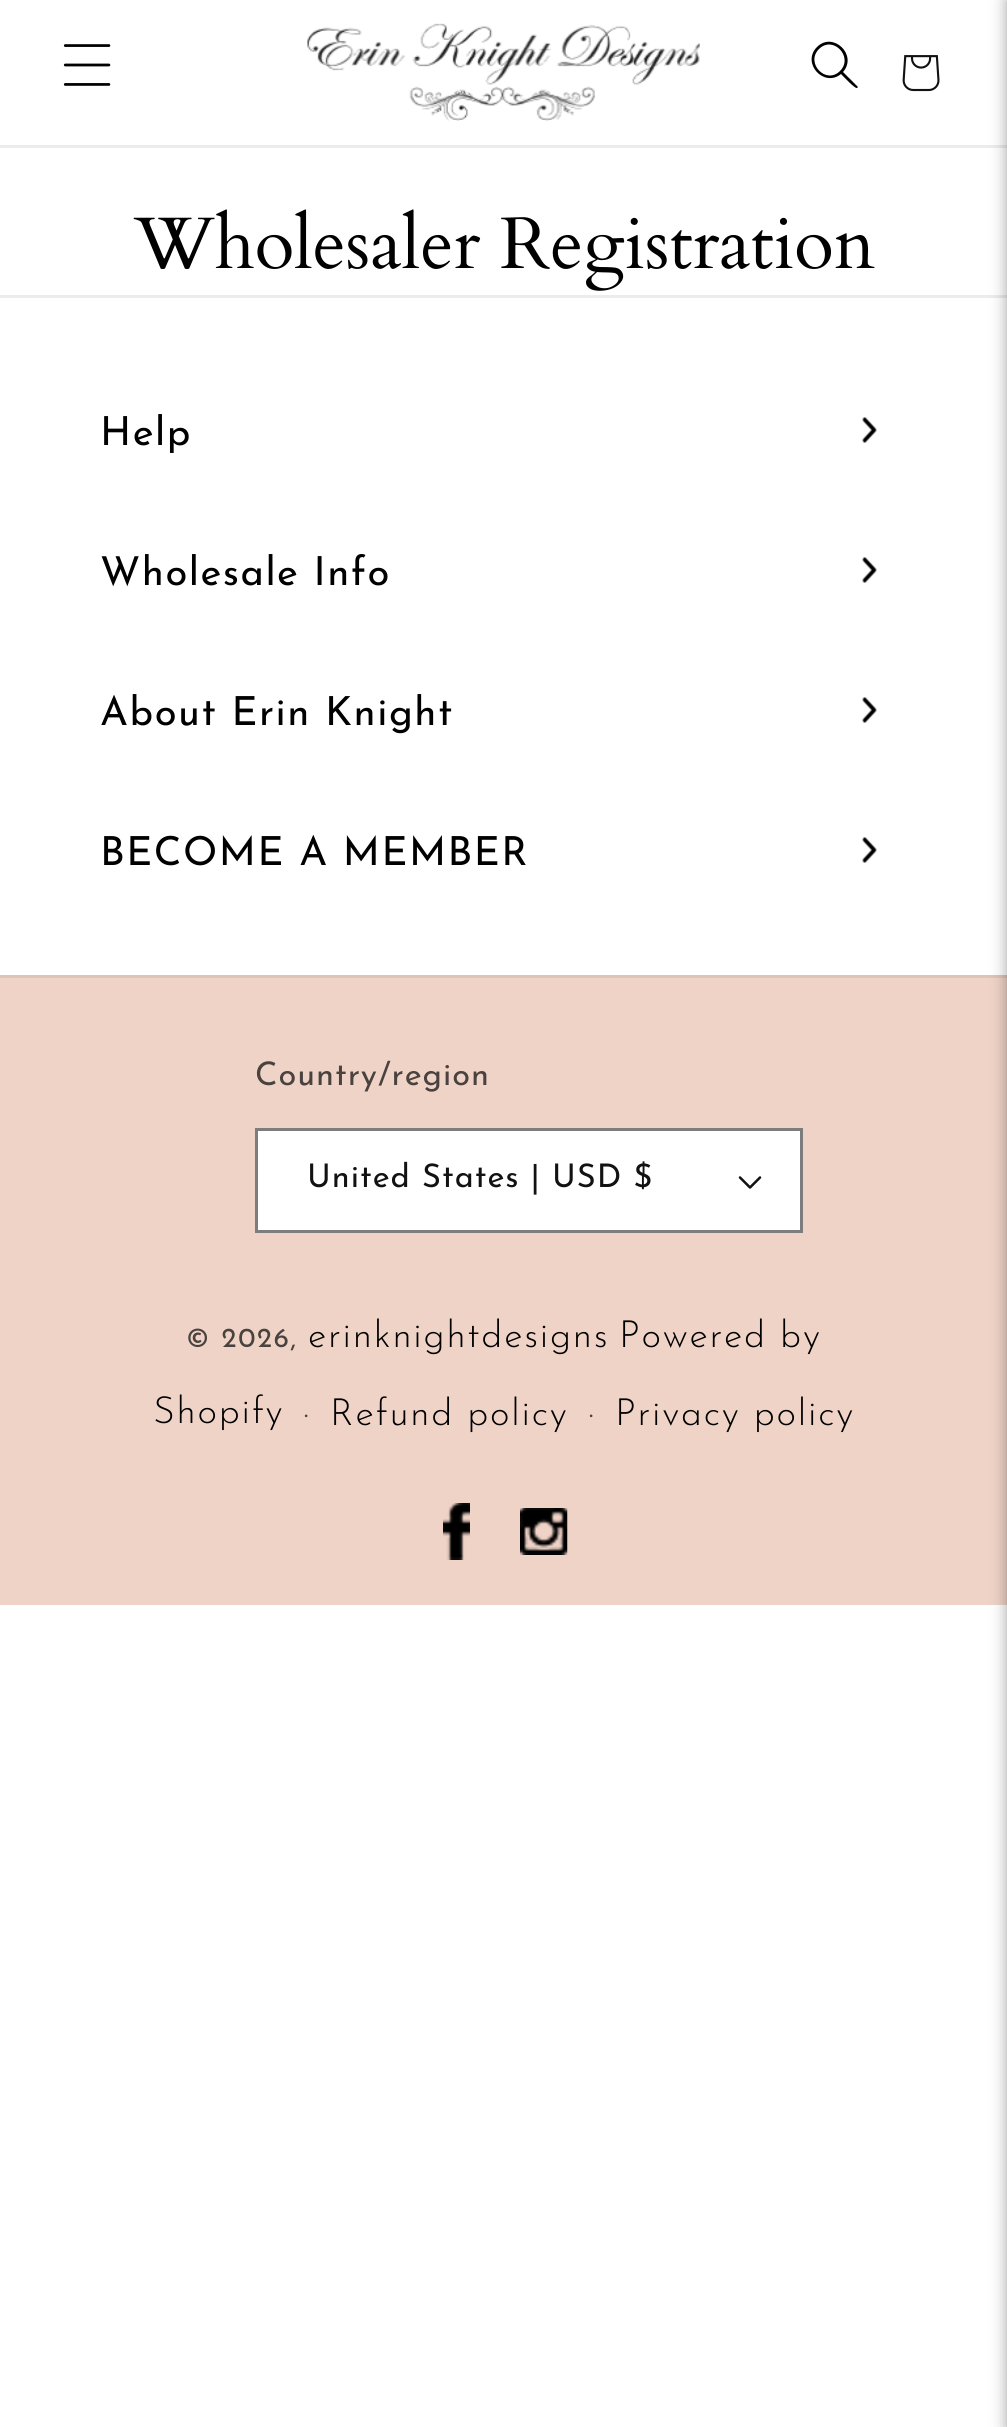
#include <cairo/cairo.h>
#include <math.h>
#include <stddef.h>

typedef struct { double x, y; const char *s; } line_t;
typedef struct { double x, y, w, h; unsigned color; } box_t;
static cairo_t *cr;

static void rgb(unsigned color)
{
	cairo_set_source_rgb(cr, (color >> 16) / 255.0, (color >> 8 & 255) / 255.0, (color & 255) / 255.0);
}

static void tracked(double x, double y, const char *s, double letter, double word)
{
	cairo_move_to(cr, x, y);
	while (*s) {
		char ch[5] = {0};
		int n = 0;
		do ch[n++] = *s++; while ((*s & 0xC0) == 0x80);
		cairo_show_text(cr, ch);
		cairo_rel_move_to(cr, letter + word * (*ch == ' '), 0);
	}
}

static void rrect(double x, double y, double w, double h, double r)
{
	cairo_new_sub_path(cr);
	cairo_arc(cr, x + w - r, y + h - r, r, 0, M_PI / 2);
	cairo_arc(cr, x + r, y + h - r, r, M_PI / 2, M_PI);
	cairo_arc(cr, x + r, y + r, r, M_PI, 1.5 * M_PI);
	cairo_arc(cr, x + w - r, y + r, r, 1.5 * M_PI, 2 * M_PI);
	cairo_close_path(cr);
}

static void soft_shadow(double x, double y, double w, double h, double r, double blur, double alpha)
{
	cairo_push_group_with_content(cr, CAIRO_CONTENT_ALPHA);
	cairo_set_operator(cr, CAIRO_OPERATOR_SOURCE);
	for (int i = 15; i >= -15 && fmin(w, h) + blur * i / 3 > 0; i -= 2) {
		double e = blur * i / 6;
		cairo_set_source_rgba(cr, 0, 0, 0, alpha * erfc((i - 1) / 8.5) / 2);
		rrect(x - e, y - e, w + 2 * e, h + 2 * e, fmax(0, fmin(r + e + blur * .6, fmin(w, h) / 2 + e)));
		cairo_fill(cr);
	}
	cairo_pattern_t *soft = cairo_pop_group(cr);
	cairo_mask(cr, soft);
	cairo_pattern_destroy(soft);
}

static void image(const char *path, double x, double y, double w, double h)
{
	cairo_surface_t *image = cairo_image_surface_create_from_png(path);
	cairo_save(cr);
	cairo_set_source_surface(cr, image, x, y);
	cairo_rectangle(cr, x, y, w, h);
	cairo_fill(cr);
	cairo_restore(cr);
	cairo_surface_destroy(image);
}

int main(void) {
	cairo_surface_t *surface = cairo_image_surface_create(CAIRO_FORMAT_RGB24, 1007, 2427);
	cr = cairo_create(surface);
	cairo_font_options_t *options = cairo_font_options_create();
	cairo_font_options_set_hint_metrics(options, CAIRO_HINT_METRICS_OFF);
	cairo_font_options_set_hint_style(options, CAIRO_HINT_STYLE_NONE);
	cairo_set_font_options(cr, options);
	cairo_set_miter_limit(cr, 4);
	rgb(0xffffff);
	cairo_paint(cr);
	{
		static const box_t items[] = {
			{0, 145, 1007, 3, 0xececec},
			{0, 295, 1007, 3, 0xececec},
			{0, 978, 1007, 627, 0xefd3c7},
			{0, 975, 1007, 3, 0xddc4b9},
		};
		for (size_t i = 0; i < sizeof items / sizeof *items; i++) {
			rgb(items[i].color);
			cairo_rectangle(cr, items[i].x, items[i].y, items[i].w, items[i].h);
			cairo_fill(cr);
		}
	}
	rgb(0x000000);
	soft_shadow(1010, 0, 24, 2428, 0, 9, 0.5);
	image("img/1.png", 63, 44, 48, 42);
	image("img/2.png", 307, 23, 393, 98);
	rgb(0x000000);
	cairo_set_fill_rule(cr, CAIRO_FILL_RULE_EVEN_ODD);
	cairo_new_path(cr);
	cairo_move_to(cr, 840, 71);
	cairo_curve_to(cr, 826, 85, 805, 63, 819, 49);
	cairo_curve_to(cr, 833, 35, 854, 57, 840, 71);
	cairo_close_path(cr);
	cairo_move_to(cr, 841, 74);
	cairo_curve_to(cr, 824, 88, 801, 63, 817, 47);
	cairo_curve_to(cr, 833, 31, 858, 55, 843, 72);
	cairo_line_to(cr, 858, 87);
	cairo_line_to(cr, 857, 88);
	cairo_curve_to(cr, 855, 89, 843, 76, 841, 74);
	cairo_close_path(cr);
	cairo_fill(cr);
	image("img/3.png", 902, 55, 38, 37);
	image("img/4.png", 862, 417, 15, 26);
	image("img/4.png", 862, 557, 15, 26);
	image("img/4.png", 862, 697, 15, 26);
	image("img/4.png", 862, 837, 15, 26);
	rgb(0xffffff);
	cairo_rectangle(cr, 258, 1131, 542, 99);
	cairo_fill(cr);
	image("img/5.png", 738, 1176, 24, 13);
	cairo_rectangle(cr, 256.5, 1129.5, 545, 102);
	rgb(0x7d7d7d);
	cairo_set_line_width(cr, 3);
	cairo_stroke(cr);
	image("img/6.png", 443, 1503, 27, 57);
	image("img/7.png", 520, 1508, 48, 47);
	cairo_select_font_face(cr, "Cardo", CAIRO_FONT_SLANT_NORMAL, CAIRO_FONT_WEIGHT_NORMAL);
	cairo_set_font_size(cr, 73);
	rgb(0x000000);
	cairo_move_to(cr, 134, 268);
	cairo_show_text(cr, "Wholesaler Registration");
	cairo_select_font_face(cr, "Josefin Sans", CAIRO_FONT_SLANT_NORMAL, CAIRO_FONT_WEIGHT_NORMAL);
	cairo_set_font_size(cr, 40);
	{
		static const line_t items[] = {
			{100, 445, "Help"},
			{100, 585, "Wholesale Info"},
			{100, 725, "About Erin Knight"},
			{100, 865, "BECOME A MEMBER"},
		};
		for (size_t i = 0; i < sizeof items / sizeof *items; i++) {
			tracked(items[i].x, items[i].y, items[i].s, 1.5, 0);
		}
	}
	cairo_set_font_size(cr, 32.5);
	rgb(0x49423f);
	tracked(255, 1085, "Country/region", 1, 0);
	rgb(0x121212);
	tracked(307, 1187, "United States | USD $", 1, 0);
	cairo_set_font_size(cr, 27.5);
	rgb(0x49423f);
	tracked(186, 1347, "© 2026,", 1.75, 0);
	cairo_select_font_face(cr, "Josefin Sans Light", CAIRO_FONT_SLANT_NORMAL, CAIRO_FONT_WEIGHT_NORMAL);
	cairo_set_font_size(cr, 37.5);
	rgb(0x000000);
	{
		static const line_t items[] = {
			{308, 1347, "erinknightdesigns"},
			{619, 1347, "Powered by"},
			{153, 1423, "Shopify"},
		};
		for (size_t i = 0; i < sizeof items / sizeof *items; i++) {
			tracked(items[i].x, items[i].y, items[i].s, 1.75, 0);
		}
	}
	cairo_select_font_face(cr, "Josefin Sans", CAIRO_FONT_SLANT_NORMAL, CAIRO_FONT_WEIGHT_NORMAL);
	cairo_set_font_size(cr, 25);
	rgb(0x49423f);
	tracked(304, 1423, "·", 1.75, 0);
	cairo_select_font_face(cr, "Josefin Sans Light", CAIRO_FONT_SLANT_NORMAL, CAIRO_FONT_WEIGHT_NORMAL);
	cairo_set_font_size(cr, 37.5);
	rgb(0x000000);
	tracked(330, 1425, "Refund policy", 1.75, 0);
	cairo_select_font_face(cr, "Josefin Sans", CAIRO_FONT_SLANT_NORMAL, CAIRO_FONT_WEIGHT_NORMAL);
	cairo_set_font_size(cr, 25);
	rgb(0x49423f);
	tracked(589, 1423, "·", 1.75, 0);
	cairo_select_font_face(cr, "Josefin Sans Light", CAIRO_FONT_SLANT_NORMAL, CAIRO_FONT_WEIGHT_NORMAL);
	cairo_set_font_size(cr, 37.5);
	rgb(0x000000);
	tracked(615, 1425, "Privacy policy", 1.75, 0);
	cairo_surface_write_to_png(surface, "page.png");
	cairo_font_options_destroy(options);
	cairo_destroy(cr);
	cairo_surface_destroy(surface);
	return 0;
}
